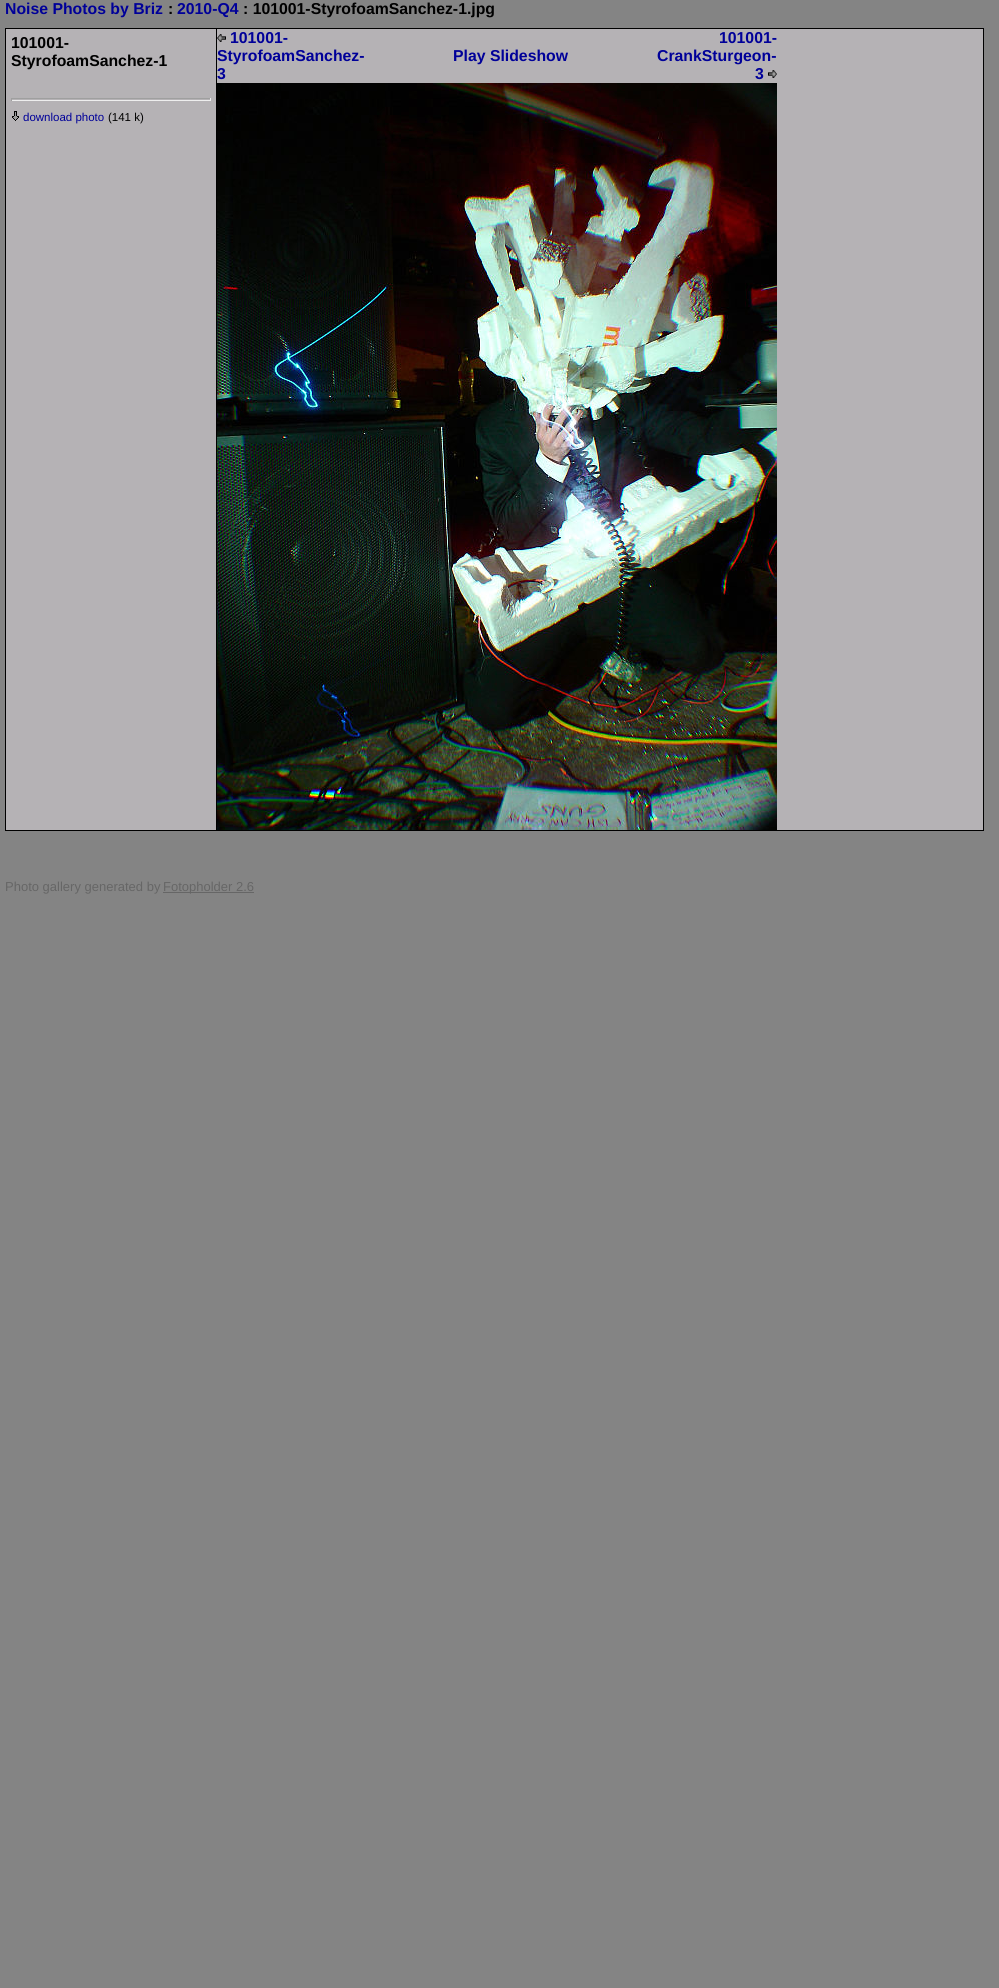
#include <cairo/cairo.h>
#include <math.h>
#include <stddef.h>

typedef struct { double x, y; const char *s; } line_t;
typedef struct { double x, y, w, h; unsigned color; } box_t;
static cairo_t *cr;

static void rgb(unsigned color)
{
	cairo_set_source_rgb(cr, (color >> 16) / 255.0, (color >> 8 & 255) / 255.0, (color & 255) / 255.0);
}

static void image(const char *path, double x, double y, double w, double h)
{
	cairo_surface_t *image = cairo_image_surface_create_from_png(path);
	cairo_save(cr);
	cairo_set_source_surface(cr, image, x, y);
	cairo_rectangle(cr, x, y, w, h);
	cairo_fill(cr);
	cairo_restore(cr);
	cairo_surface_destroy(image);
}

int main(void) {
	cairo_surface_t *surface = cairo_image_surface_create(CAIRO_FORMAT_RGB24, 999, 1988);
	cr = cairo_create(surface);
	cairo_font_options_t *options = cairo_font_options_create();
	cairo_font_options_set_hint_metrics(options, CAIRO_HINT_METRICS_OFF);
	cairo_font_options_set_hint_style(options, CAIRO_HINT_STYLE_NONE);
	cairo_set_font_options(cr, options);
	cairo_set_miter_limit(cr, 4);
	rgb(0x848484);
	cairo_paint(cr);
	rgb(0xb5b2b5);
	cairo_rectangle(cr, 5.5, 28.5, 978, 802);
	cairo_fill_preserve(cr);
	rgb(0x000000);
	cairo_set_line_width(cr, 1);
	cairo_stroke(cr);
	{
		static const box_t items[] = {
			{216, 29, 1, 801, 0x000000},
			{11, 98, 200, 1, 0x9f9f9f},
			{210, 98, 1, 3, 0xeeeeee},
			{11, 100, 200, 1, 0xeeeeee},
			{11, 98, 1, 3, 0x9f9f9f},
		};
		for (size_t i = 0; i < sizeof items / sizeof *items; i++) {
			rgb(items[i].color);
			cairo_rectangle(cr, items[i].x, items[i].y, items[i].w, items[i].h);
			cairo_fill(cr);
		}
	}
	image("img/1.png", 12, 111, 7, 10);
	image("img/2.png", 217, 34, 9, 8);
	image("img/3.png", 768, 70, 9, 8);
	image("img/4.png", 217, 83, 560, 747);
	rgb(0x666666);
	cairo_rectangle(cr, 163, 892, 91, 1);
	cairo_fill(cr);
	cairo_select_font_face(cr, "Liberation Sans", CAIRO_FONT_SLANT_NORMAL, CAIRO_FONT_WEIGHT_BOLD);
	cairo_set_font_size(cr, 15.8);
	rgb(0x000099);
	cairo_move_to(cr, 5, 14);
	cairo_show_text(cr, "Noise Photos by Briz");
	rgb(0x000000);
	cairo_move_to(cr, 168, 14);
	cairo_show_text(cr, ":");
	rgb(0x000099);
	cairo_move_to(cr, 177, 14);
	cairo_show_text(cr, "2010-Q4");
	rgb(0x000000);
	{
		static const line_t items[] = {
			{243, 14, ": 101001-StyrofoamSanchez-1.jpg"},
			{11, 48, "101001-"},
			{11, 66, "StyrofoamSanchez-1"},
		};
		for (size_t i = 0; i < sizeof items / sizeof *items; i++) {
			cairo_move_to(cr, items[i].x, items[i].y);
			cairo_show_text(cr, items[i].s);
		}
	}
	cairo_select_font_face(cr, "Liberation Sans", CAIRO_FONT_SLANT_NORMAL, CAIRO_FONT_WEIGHT_NORMAL);
	cairo_set_font_size(cr, 11.5);
	rgb(0x000099);
	cairo_move_to(cr, 23, 121);
	cairo_show_text(cr, "download photo");
	rgb(0x000000);
	cairo_move_to(cr, 108, 121);
	cairo_show_text(cr, "(141 k)");
	cairo_select_font_face(cr, "Liberation Sans", CAIRO_FONT_SLANT_NORMAL, CAIRO_FONT_WEIGHT_BOLD);
	cairo_set_font_size(cr, 15.8);
	rgb(0x000099);
	{
		static const line_t items[] = {
			{230, 43, "101001-"},
			{217, 61, "StyrofoamSanchez-"},
			{217, 79, "3"},
			{453, 61, "Play Slideshow"},
			{719, 43, "101001-"},
			{657, 61, "CrankSturgeon-"},
			{755, 79, "3"},
		};
		for (size_t i = 0; i < sizeof items / sizeof *items; i++) {
			cairo_move_to(cr, items[i].x, items[i].y);
			cairo_show_text(cr, items[i].s);
		}
	}
	cairo_select_font_face(cr, "Liberation Sans", CAIRO_FONT_SLANT_NORMAL, CAIRO_FONT_WEIGHT_NORMAL);
	cairo_set_font_size(cr, 13);
	rgb(0x666666);
	cairo_move_to(cr, 5, 891);
	cairo_show_text(cr, "Photo gallery generated by");
	cairo_move_to(cr, 163, 891);
	cairo_show_text(cr, "Fotopholder 2.6");
	cairo_surface_write_to_png(surface, "page.png");
	cairo_font_options_destroy(options);
	cairo_destroy(cr);
	cairo_surface_destroy(surface);
	return 0;
}
